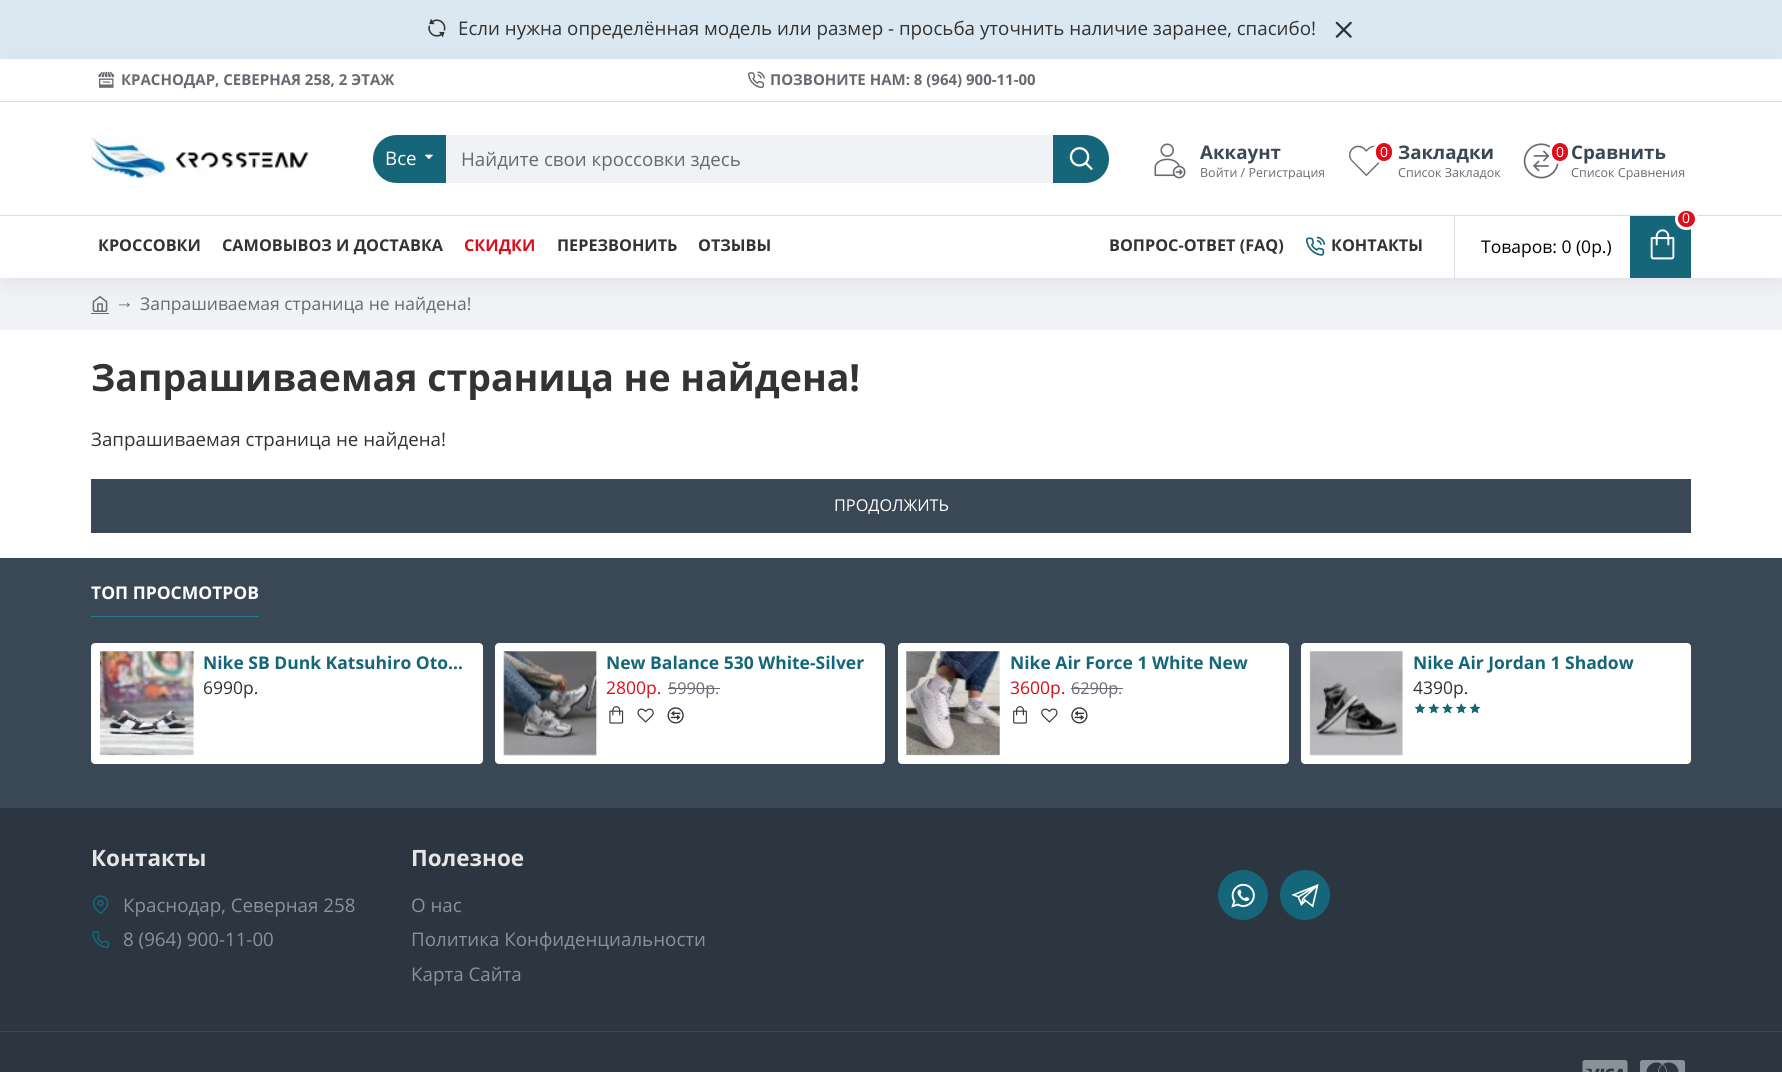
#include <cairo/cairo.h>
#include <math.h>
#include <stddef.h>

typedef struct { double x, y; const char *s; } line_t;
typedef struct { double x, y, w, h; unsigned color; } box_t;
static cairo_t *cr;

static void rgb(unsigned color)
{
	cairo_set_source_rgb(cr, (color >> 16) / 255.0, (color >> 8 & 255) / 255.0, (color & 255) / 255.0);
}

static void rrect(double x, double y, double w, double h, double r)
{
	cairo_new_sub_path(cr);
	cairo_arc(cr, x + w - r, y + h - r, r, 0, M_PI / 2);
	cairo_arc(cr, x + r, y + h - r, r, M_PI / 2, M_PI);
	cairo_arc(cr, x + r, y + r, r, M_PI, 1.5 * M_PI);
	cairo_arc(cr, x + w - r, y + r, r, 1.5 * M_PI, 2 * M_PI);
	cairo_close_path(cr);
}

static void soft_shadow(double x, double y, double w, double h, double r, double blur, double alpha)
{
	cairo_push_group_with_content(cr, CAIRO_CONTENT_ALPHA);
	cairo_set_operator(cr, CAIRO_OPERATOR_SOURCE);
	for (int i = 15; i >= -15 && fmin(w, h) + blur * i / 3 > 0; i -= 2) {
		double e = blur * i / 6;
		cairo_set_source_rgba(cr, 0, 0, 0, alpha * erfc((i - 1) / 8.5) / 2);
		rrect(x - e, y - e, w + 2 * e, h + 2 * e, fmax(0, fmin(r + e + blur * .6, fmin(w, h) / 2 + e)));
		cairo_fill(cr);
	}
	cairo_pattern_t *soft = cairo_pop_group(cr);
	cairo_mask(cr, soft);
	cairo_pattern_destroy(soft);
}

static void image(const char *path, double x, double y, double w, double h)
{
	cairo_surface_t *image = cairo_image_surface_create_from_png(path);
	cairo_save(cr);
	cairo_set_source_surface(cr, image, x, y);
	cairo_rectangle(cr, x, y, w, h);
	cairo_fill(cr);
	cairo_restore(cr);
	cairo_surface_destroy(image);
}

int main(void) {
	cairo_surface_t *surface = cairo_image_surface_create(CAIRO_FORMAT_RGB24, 1782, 1072);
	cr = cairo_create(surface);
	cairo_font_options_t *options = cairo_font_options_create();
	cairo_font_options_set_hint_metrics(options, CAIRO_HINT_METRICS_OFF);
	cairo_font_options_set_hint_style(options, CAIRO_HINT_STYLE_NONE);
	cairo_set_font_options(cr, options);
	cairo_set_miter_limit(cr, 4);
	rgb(0xffffff);
	cairo_paint(cr);
	rgb(0xdbe8f2);
	cairo_rectangle(cr, 0, 0, 1782, 59);
	cairo_fill(cr);
	image("img/1.png", 428, 18, 18, 20);
	image("img/2.png", 1335, 21, 17, 17);
	rgb(0xf0f2f5);
	cairo_rectangle(cr, 0, 278, 1782, 52);
	cairo_fill(cr);
	image("img/13.png", 92, 296, 16, 16);
	rgb(0x696973);
	cairo_rectangle(cr, 91, 313, 18, 1);
	cairo_fill(cr);
	rgb(0x000000);
	soft_shadow(6, 71, 1770, 207, 0, 12.5, 0.1);
	rgb(0xffffff);
	cairo_rectangle(cr, 0, 59, 1782, 219);
	cairo_fill(cr);
	image("img/3.png", 98, 71, 17, 17);
	image("img/4.png", 748, 71, 17, 18);
	image("img/5.png", 91, 136, 218, 44);
	rgb(0x146678);
	cairo_new_path(cr);
	cairo_move_to(cr, 397, 135);
	cairo_line_to(cr, 446, 135);
	cairo_line_to(cr, 446, 183);
	cairo_line_to(cr, 397, 183);
	cairo_curve_to(cr, 383.5, 183, 373, 172.5, 373, 159);
	cairo_curve_to(cr, 373, 145.5, 383.5, 135, 397, 135);
	cairo_close_path(cr);
	cairo_fill(cr);
	image("img/6.png", 425, 154, 8, 5);
	rgb(0xf0f2f5);
	cairo_rectangle(cr, 446, 135, 607, 48);
	cairo_fill(cr);
	rgb(0x146678);
	cairo_new_path(cr);
	cairo_move_to(cr, 1053, 135);
	cairo_line_to(cr, 1085, 135);
	cairo_curve_to(cr, 1098.5, 135, 1109, 145.5, 1109, 159);
	cairo_curve_to(cr, 1109, 172.5, 1098.5, 183, 1085, 183);
	cairo_line_to(cr, 1053, 183);
	cairo_close_path(cr);
	cairo_fill(cr);
	image("img/7.png", 1069, 147, 24, 23);
	image("img/8.png", 1154, 143, 32, 36);
	image("img/9.png", 1349, 145, 31, 32);
	rgb(0xdd0e1c);
	rrect(1374.5, 141.5, 19, 21, 9.5);
	cairo_fill_preserve(cr);
	rgb(0xffffff);
	cairo_set_line_width(cr, 3);
	cairo_stroke(cr);
	image("img/10.png", 1523, 143, 36, 36);
	rgb(0xdd0e1c);
	rrect(1550.5, 141.5, 19, 21, 9.5);
	cairo_fill_preserve(cr);
	rgb(0xffffff);
	cairo_stroke(cr);
	{
		static const box_t items[] = {
			{0, 215, 1782, 1, 0xdddddd},
			{1454, 215, 1, 63, 0xdddddd},
			{1630, 216, 61, 62, 0x146678},
		};
		for (size_t i = 0; i < sizeof items / sizeof *items; i++) {
			rgb(items[i].color);
			cairo_rectangle(cr, items[i].x, items[i].y, items[i].w, items[i].h);
			cairo_fill(cr);
		}
	}
	rgb(0xdd0e1c);
	rrect(1676.5, 209.5, 20, 19, 9.5);
	cairo_fill_preserve(cr);
	rgb(0xffffff);
	cairo_stroke(cr);
	image("img/11.png", 1650, 229, 25, 31);
	image("img/12.png", 1305, 236, 20, 20);
	{
		static const box_t items[] = {
			{0, 101, 1782, 1, 0xdddddd},
			{91, 479, 1600, 54, 0x3a4754},
			{0, 808, 1782, 264, 0x2c3640},
			{0, 558, 1782, 250, 0x3a4754},
			{91, 616, 168, 1, 0x277b8c},
		};
		for (size_t i = 0; i < sizeof items / sizeof *items; i++) {
			rgb(items[i].color);
			cairo_rectangle(cr, items[i].x, items[i].y, items[i].w, items[i].h);
			cairo_fill(cr);
		}
	}
	rgb(0xffffff);
	rrect(91, 643, 392, 121, 4);
	cairo_fill(cr);
	image("img/14.png", 100, 651, 94, 105);
	rrect(495, 643, 390, 121, 4);
	cairo_fill(cr);
	image("img/15.png", 503, 651, 95, 105);
	rgb(0x696973);
	cairo_rectangle(cr, 668, 688, 52, 1);
	cairo_fill(cr);
	image("img/16.png", 609, 706, 15, 18);
	image("img/17.png", 637, 708, 17, 15);
	image("img/18.png", 667, 707, 17, 17);
	rgb(0xffffff);
	rrect(898, 643, 391, 121, 4);
	cairo_fill(cr);
	image("img/19.png", 906, 651, 94, 105);
	rgb(0x696973);
	cairo_rectangle(cr, 1071, 688, 52, 1);
	cairo_fill(cr);
	image("img/20.png", 1013, 706, 14, 18);
	image("img/21.png", 1041, 708, 17, 15);
	image("img/22.png", 1071, 707, 17, 17);
	rgb(0xffffff);
	rrect(1301, 643, 390, 121, 4);
	cairo_fill(cr);
	image("img/23.png", 1309, 651, 95, 105);
	image("img/24.png", 1414, 703, 12, 11);
	image("img/25.png", 1414, 703, 12, 11);
	image("img/26.png", 1428, 703, 11, 11);
	image("img/27.png", 1428, 703, 11, 11);
	image("img/28.png", 1442, 703, 11, 11);
	image("img/29.png", 1442, 703, 11, 11);
	image("img/30.png", 1456, 703, 11, 11);
	image("img/31.png", 1456, 703, 11, 11);
	image("img/24.png", 1469, 703, 12, 11);
	image("img/25.png", 1469, 703, 12, 11);
	image("img/32.png", 92, 895, 17, 19);
	image("img/33.png", 92, 931, 18, 18);
	rgb(0x146678);
	cairo_arc(cr, 1243, 895, 25, 0, 2 * M_PI);
	cairo_fill(cr);
	image("img/34.png", 1231, 883, 24, 25);
	cairo_arc(cr, 1305, 895, 25, 0, 2 * M_PI);
	cairo_fill(cr);
	image("img/35.png", 1291, 884, 28, 24);
	rgb(0x3a4754);
	cairo_rectangle(cr, 0, 1031, 1782, 1);
	cairo_fill(cr);
	image("img/36.png", 1582, 1060, 46, 12);
	image("img/37.png", 1640, 1060, 45, 12);
	cairo_select_font_face(cr, "Open Sans", CAIRO_FONT_SLANT_NORMAL, CAIRO_FONT_WEIGHT_NORMAL);
	cairo_set_font_size(cr, 18.75);
	rgb(0x333333);
	cairo_move_to(cr, 458, 35);
	cairo_show_text(cr, "Если нужна определённая модель или размер - просьба уточнить наличие заранее, спасибо!");
	cairo_select_font_face(cr, "Open Sans", CAIRO_FONT_SLANT_NORMAL, CAIRO_FONT_WEIGHT_BOLD);
	cairo_set_font_size(cr, 15);
	rgb(0x696973);
	cairo_move_to(cr, 121, 85);
	cairo_show_text(cr, "КРАСНОДАР, СЕВЕРНАЯ 258, 2 ЭТАЖ");
	cairo_move_to(cr, 770, 85);
	cairo_show_text(cr, "ПОЗВОНИТЕ НАМ: 8 (964) 900-11-00");
	cairo_select_font_face(cr, "Open Sans", CAIRO_FONT_SLANT_NORMAL, CAIRO_FONT_WEIGHT_NORMAL);
	cairo_set_font_size(cr, 18.75);
	rgb(0xffffff);
	cairo_move_to(cr, 385, 165);
	cairo_show_text(cr, "Все");
	rgb(0x696973);
	cairo_move_to(cr, 461, 166);
	cairo_show_text(cr, "Найдите свои кроссовки здесь");
	cairo_select_font_face(cr, "Open Sans", CAIRO_FONT_SLANT_NORMAL, CAIRO_FONT_WEIGHT_BOLD);
	rgb(0x3a4754);
	cairo_move_to(cr, 1200, 159);
	cairo_show_text(cr, "Аккаунт");
	cairo_save(cr);
	cairo_rectangle(cr, 1200, 138, 125, 41);
	cairo_clip(cr);
	cairo_select_font_face(cr, "Open Sans", CAIRO_FONT_SLANT_NORMAL, CAIRO_FONT_WEIGHT_NORMAL);
	cairo_set_font_size(cr, 12.5);
	rgb(0x696973);
	cairo_move_to(cr, 1200, 177);
	cairo_show_text(cr, "Войти / Регистрация");
	cairo_restore(cr);
	cairo_select_font_face(cr, "Open Sans", CAIRO_FONT_SLANT_NORMAL, CAIRO_FONT_WEIGHT_NORMAL);
	cairo_set_font_size(cr, 14);
	rgb(0xffffff);
	cairo_move_to(cr, 1380, 157);
	cairo_show_text(cr, "0");
	cairo_select_font_face(cr, "Open Sans", CAIRO_FONT_SLANT_NORMAL, CAIRO_FONT_WEIGHT_BOLD);
	cairo_set_font_size(cr, 18.75);
	rgb(0x3a4754);
	cairo_move_to(cr, 1398, 159);
	cairo_show_text(cr, "Закладки");
	cairo_save(cr);
	cairo_rectangle(cr, 1398, 138, 103, 41);
	cairo_clip(cr);
	cairo_select_font_face(cr, "Open Sans", CAIRO_FONT_SLANT_NORMAL, CAIRO_FONT_WEIGHT_NORMAL);
	cairo_set_font_size(cr, 12.5);
	rgb(0x696973);
	cairo_move_to(cr, 1398, 177);
	cairo_show_text(cr, "Список Закладок");
	cairo_restore(cr);
	cairo_select_font_face(cr, "Open Sans", CAIRO_FONT_SLANT_NORMAL, CAIRO_FONT_WEIGHT_NORMAL);
	cairo_set_font_size(cr, 14);
	rgb(0xffffff);
	cairo_move_to(cr, 1556, 157);
	cairo_show_text(cr, "0");
	cairo_select_font_face(cr, "Open Sans", CAIRO_FONT_SLANT_NORMAL, CAIRO_FONT_WEIGHT_BOLD);
	cairo_set_font_size(cr, 18.75);
	rgb(0x3a4754);
	cairo_move_to(cr, 1571, 159);
	cairo_show_text(cr, "Сравнить");
	cairo_select_font_face(cr, "Open Sans", CAIRO_FONT_SLANT_NORMAL, CAIRO_FONT_WEIGHT_NORMAL);
	cairo_set_font_size(cr, 12.5);
	rgb(0x696973);
	cairo_move_to(cr, 1571, 177);
	cairo_show_text(cr, "Список Сравнения");
	cairo_set_font_size(cr, 14);
	rgb(0xffffff);
	cairo_move_to(cr, 1682, 223);
	cairo_show_text(cr, "0");
	cairo_set_font_size(cr, 17.5);
	rgb(0x000000);
	cairo_move_to(cr, 1481, 253);
	cairo_show_text(cr, "Товаров: 0 (0р.)");
	cairo_select_font_face(cr, "Open Sans", CAIRO_FONT_SLANT_NORMAL, CAIRO_FONT_WEIGHT_BOLD);
	cairo_set_font_size(cr, 16.25);
	rgb(0x333333);
	cairo_move_to(cr, 98, 251);
	cairo_show_text(cr, "КРОССОВКИ");
	cairo_move_to(cr, 222, 251);
	cairo_show_text(cr, "САМОВЫВОЗ И ДОСТАВКА");
	rgb(0xdd0e1c);
	cairo_move_to(cr, 464, 251);
	cairo_show_text(cr, "СКИДКИ");
	rgb(0x333333);
	{
		static const line_t items[] = {
			{557, 251, "ПЕРЕЗВОНИТЬ"},
			{698, 251, "ОТЗЫВЫ"},
			{1109, 251, "ВОПРОС-ОТВЕТ (FAQ)"},
			{1331, 251, "КОНТАКТЫ"},
		};
		for (size_t i = 0; i < sizeof items / sizeof *items; i++) {
			cairo_move_to(cr, items[i].x, items[i].y);
			cairo_show_text(cr, items[i].s);
		}
	}
	cairo_select_font_face(cr, "Liberation Serif", CAIRO_FONT_SLANT_NORMAL, CAIRO_FONT_WEIGHT_NORMAL);
	cairo_set_font_size(cr, 18.75);
	rgb(0x696973);
	cairo_move_to(cr, 115, 308);
	cairo_show_text(cr, "→");
	cairo_select_font_face(cr, "Open Sans", CAIRO_FONT_SLANT_NORMAL, CAIRO_FONT_WEIGHT_NORMAL);
	cairo_set_font_size(cr, 17.5);
	cairo_move_to(cr, 140, 310);
	cairo_show_text(cr, "Запрашиваемая страница не найдена!");
	cairo_select_font_face(cr, "Open Sans", CAIRO_FONT_SLANT_NORMAL, CAIRO_FONT_WEIGHT_BOLD);
	cairo_set_font_size(cr, 37.5);
	rgb(0x333333);
	cairo_move_to(cr, 91, 391);
	cairo_show_text(cr, "Запрашиваемая страница не найдена!");
	cairo_select_font_face(cr, "Open Sans", CAIRO_FONT_SLANT_NORMAL, CAIRO_FONT_WEIGHT_NORMAL);
	cairo_set_font_size(cr, 18.75);
	cairo_move_to(cr, 91, 446);
	cairo_show_text(cr, "Запрашиваемая страница не найдена!");
	cairo_set_font_size(cr, 16.25);
	rgb(0xffffff);
	cairo_move_to(cr, 834, 511);
	cairo_show_text(cr, "ПРОДОЛЖИТЬ");
	cairo_select_font_face(cr, "Open Sans", CAIRO_FONT_SLANT_NORMAL, CAIRO_FONT_WEIGHT_BOLD);
	cairo_set_font_size(cr, 17.5);
	cairo_move_to(cr, 91, 599);
	cairo_show_text(cr, "ТОП ПРОСМОТРОВ");
	rgb(0x146678);
	cairo_move_to(cr, 203, 669);
	cairo_show_text(cr, "Nike SB Dunk Katsuhiro Oto…");
	cairo_select_font_face(cr, "Open Sans", CAIRO_FONT_SLANT_NORMAL, CAIRO_FONT_WEIGHT_NORMAL);
	rgb(0x333333);
	cairo_move_to(cr, 203, 694);
	cairo_show_text(cr, "6990р.");
	cairo_select_font_face(cr, "Open Sans", CAIRO_FONT_SLANT_NORMAL, CAIRO_FONT_WEIGHT_BOLD);
	rgb(0x146678);
	cairo_move_to(cr, 606, 669);
	cairo_show_text(cr, "New Balance 530 White-Silver");
	cairo_select_font_face(cr, "Open Sans", CAIRO_FONT_SLANT_NORMAL, CAIRO_FONT_WEIGHT_NORMAL);
	rgb(0xdd0e1c);
	cairo_move_to(cr, 606, 694);
	cairo_show_text(cr, "2800р.");
	cairo_set_font_size(cr, 16.25);
	rgb(0x696973);
	cairo_move_to(cr, 668, 694);
	cairo_show_text(cr, "5990р.");
	cairo_select_font_face(cr, "Open Sans", CAIRO_FONT_SLANT_NORMAL, CAIRO_FONT_WEIGHT_BOLD);
	cairo_set_font_size(cr, 17.5);
	rgb(0x146678);
	cairo_move_to(cr, 1010, 669);
	cairo_show_text(cr, "Nike Air Force 1 White New");
	cairo_select_font_face(cr, "Open Sans", CAIRO_FONT_SLANT_NORMAL, CAIRO_FONT_WEIGHT_NORMAL);
	rgb(0xdd0e1c);
	cairo_move_to(cr, 1010, 694);
	cairo_show_text(cr, "3600р.");
	cairo_set_font_size(cr, 16.25);
	rgb(0x696973);
	cairo_move_to(cr, 1071, 694);
	cairo_show_text(cr, "6290р.");
	cairo_select_font_face(cr, "Open Sans", CAIRO_FONT_SLANT_NORMAL, CAIRO_FONT_WEIGHT_BOLD);
	cairo_set_font_size(cr, 17.5);
	rgb(0x146678);
	cairo_move_to(cr, 1413, 669);
	cairo_show_text(cr, "Nike Air Jordan 1 Shadow");
	cairo_select_font_face(cr, "Open Sans", CAIRO_FONT_SLANT_NORMAL, CAIRO_FONT_WEIGHT_NORMAL);
	rgb(0x333333);
	cairo_move_to(cr, 1413, 694);
	cairo_show_text(cr, "4390р.");
	cairo_select_font_face(cr, "Open Sans", CAIRO_FONT_SLANT_NORMAL, CAIRO_FONT_WEIGHT_BOLD);
	cairo_set_font_size(cr, 22.5);
	rgb(0xe6e6e6);
	cairo_move_to(cr, 91, 866);
	cairo_show_text(cr, "Контакты");
	cairo_select_font_face(cr, "Open Sans", CAIRO_FONT_SLANT_NORMAL, CAIRO_FONT_WEIGHT_NORMAL);
	cairo_set_font_size(cr, 18.75);
	rgb(0x8b9198);
	cairo_move_to(cr, 123, 912);
	cairo_show_text(cr, "Краснодар, Северная 258");
	cairo_move_to(cr, 123, 946);
	cairo_show_text(cr, "8 (964) 900-11-00");
	cairo_select_font_face(cr, "Open Sans", CAIRO_FONT_SLANT_NORMAL, CAIRO_FONT_WEIGHT_BOLD);
	cairo_set_font_size(cr, 22.5);
	rgb(0xe6e6e6);
	cairo_move_to(cr, 411, 866);
	cairo_show_text(cr, "Полезное");
	cairo_select_font_face(cr, "Open Sans", CAIRO_FONT_SLANT_NORMAL, CAIRO_FONT_WEIGHT_NORMAL);
	cairo_set_font_size(cr, 18.75);
	rgb(0x8b9198);
	{
		static const line_t items[] = {
			{411, 912, "О нас"},
			{411, 946, "Политика Конфиденциальности"},
			{411, 981, "Карта Сайта"},
		};
		for (size_t i = 0; i < sizeof items / sizeof *items; i++) {
			cairo_move_to(cr, items[i].x, items[i].y);
			cairo_show_text(cr, items[i].s);
		}
	}
	cairo_surface_write_to_png(surface, "page.png");
	cairo_font_options_destroy(options);
	cairo_destroy(cr);
	cairo_surface_destroy(surface);
	return 0;
}
